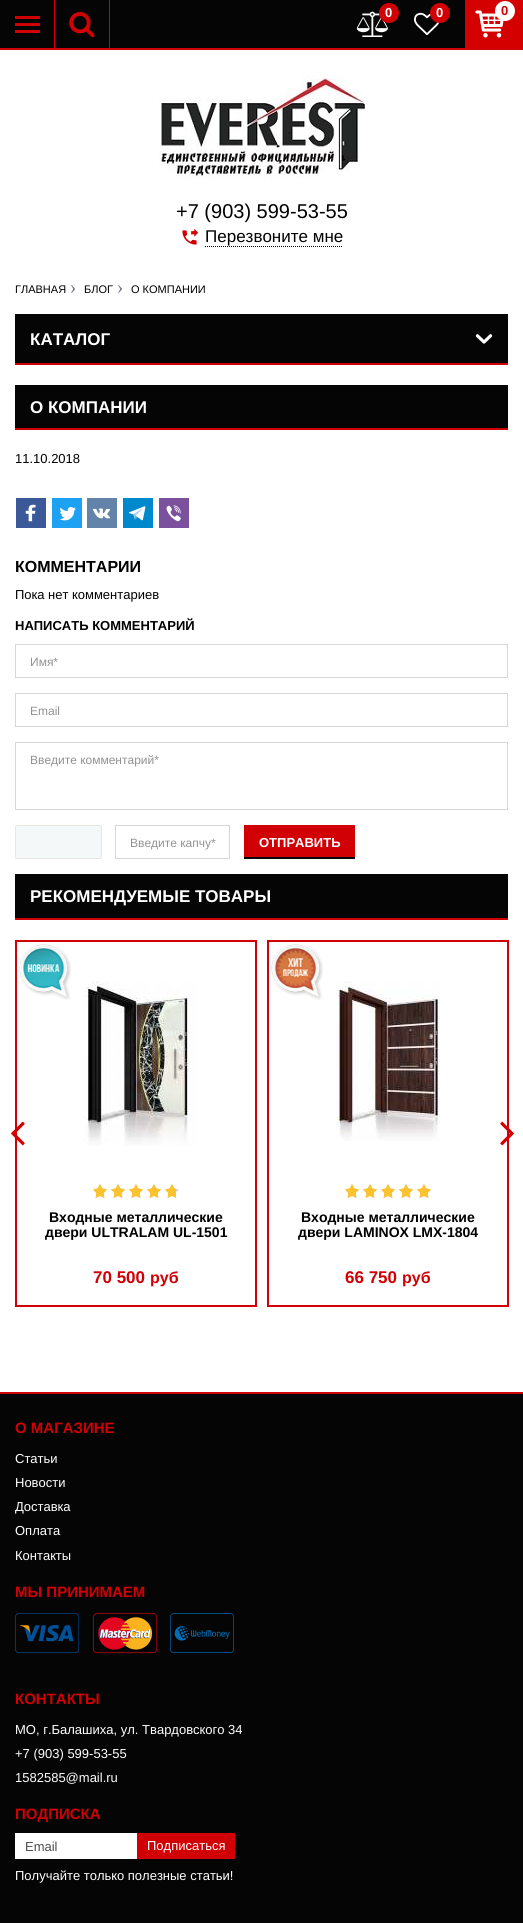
#include <cairo/cairo.h>
#include <math.h>
#include <stddef.h>

typedef struct { double x, y; const char *s; } line_t;
typedef struct { double x, y, w, h; unsigned color; } box_t;
static cairo_t *cr;

static void rgb(unsigned color)
{
	cairo_set_source_rgb(cr, (color >> 16) / 255.0, (color >> 8 & 255) / 255.0, (color & 255) / 255.0);
}

static void rrect(double x, double y, double w, double h, double r)
{
	cairo_new_sub_path(cr);
	cairo_arc(cr, x + w - r, y + h - r, r, 0, M_PI / 2);
	cairo_arc(cr, x + r, y + h - r, r, M_PI / 2, M_PI);
	cairo_arc(cr, x + r, y + r, r, M_PI, 1.5 * M_PI);
	cairo_arc(cr, x + w - r, y + r, r, 1.5 * M_PI, 2 * M_PI);
	cairo_close_path(cr);
}

static void image(const char *path, double x, double y, double w, double h)
{
	cairo_surface_t *image = cairo_image_surface_create_from_png(path);
	cairo_save(cr);
	cairo_set_source_surface(cr, image, x, y);
	cairo_rectangle(cr, x, y, w, h);
	cairo_fill(cr);
	cairo_restore(cr);
	cairo_surface_destroy(image);
}

int main(void) {
	cairo_surface_t *surface = cairo_image_surface_create(CAIRO_FORMAT_RGB24, 523, 1923);
	cr = cairo_create(surface);
	cairo_font_options_t *options = cairo_font_options_create();
	cairo_font_options_set_hint_metrics(options, CAIRO_HINT_METRICS_OFF);
	cairo_font_options_set_hint_style(options, CAIRO_HINT_STYLE_NONE);
	cairo_set_font_options(cr, options);
	cairo_set_miter_limit(cr, 4);
	rgb(0xffffff);
	cairo_paint(cr);
	{
		static const box_t items[] = {
			{0, 0, 465, 48, 0x050505},
			{0, 48, 523, 2, 0xd40000},
			{54, 0, 1, 48, 0xd00004},
			{15, 30, 25, 3, 0xd00004},
			{15, 23, 25, 3, 0xd00004},
			{15, 16, 25, 3, 0xd00004},
			{109, 0, 1, 48, 0xd00004},
		};
		for (size_t i = 0; i < sizeof items / sizeof *items; i++) {
			rgb(items[i].color);
			cairo_rectangle(cr, items[i].x, items[i].y, items[i].w, items[i].h);
			cairo_fill(cr);
		}
	}
	image("img/1.png", 69, 12, 26, 26);
	image("img/2.png", 356, 11, 32, 26);
	cairo_arc(cr, 389, 13, 10, 0, 2 * M_PI);
	cairo_fill(cr);
	image("img/3.png", 414, 12, 26, 24);
	cairo_arc(cr, 440, 13, 10, 0, 2 * M_PI);
	cairo_fill(cr);
	rgb(0xd40000);
	cairo_rectangle(cr, 465, 0, 58, 48);
	cairo_fill(cr);
	image("img/4.png", 475, 10, 29, 28);
	rgb(0xffffff);
	cairo_arc(cr, 505, 11, 10, 0, 2 * M_PI);
	cairo_fill(cr);
	image("img/5.png", 159, 75, 207, 104);
	image("img/6.png", 182, 228, 17, 17);
	cairo_new_path(cr);
	cairo_move_to(cr, 205, 246.5);
	cairo_line_to(cr, 343, 246.5);
	rgb(0x000000);
	cairo_set_line_width(cr, 1);
	cairo_set_dash(cr, (double[]){1, 1}, 2, 0);
	cairo_stroke(cr);
	image("img/7.png", 71, 285, 4, 8);
	image("img/7.png", 118, 285, 4, 8);
	rgb(0x050505);
	cairo_rectangle(cr, 15, 314, 493, 49);
	cairo_fill(cr);
	rgb(0xd00004);
	cairo_rectangle(cr, 15, 363, 493, 2);
	cairo_fill(cr);
	image("img/8.png", 475, 334, 18, 10);
	{
		static const box_t items[] = {
			{15, 385, 493, 43, 0x050505},
			{15, 428, 493, 2, 0xd00004},
			{16, 498, 30, 30, 0x3b5998},
		};
		for (size_t i = 0; i < sizeof items / sizeof *items; i++) {
			rgb(items[i].color);
			cairo_rectangle(cr, items[i].x, items[i].y, items[i].w, items[i].h);
			cairo_fill(cr);
		}
	}
	image("img/9.png", 25, 504, 11, 18);
	rgb(0x1da1f2);
	cairo_rectangle(cr, 52, 498, 30, 30);
	cairo_fill(cr);
	image("img/10.png", 59, 507, 17, 14);
	rgb(0x6383a8);
	cairo_rectangle(cr, 87, 498, 30, 30);
	cairo_fill(cr);
	image("img/11.png", 92, 508, 18, 11);
	rgb(0x0088cc);
	cairo_rectangle(cr, 123, 498, 30, 30);
	cairo_fill(cr);
	image("img/12.png", 129, 506, 17, 15);
	rgb(0x7b519d);
	cairo_rectangle(cr, 159, 498, 30, 30);
	cairo_fill(cr);
	image("img/13.png", 166, 505, 15, 17);
	cairo_rectangle(cr, 15.5, 644.5, 492, 33);
	rgb(0xd7d7d7);
	cairo_set_dash(cr, NULL, 0, 0);
	cairo_stroke(cr);
	cairo_rectangle(cr, 15.5, 693.5, 492, 33);
	cairo_stroke(cr);
	cairo_rectangle(cr, 15.5, 742.5, 492, 67);
	cairo_stroke(cr);
	rgb(0xf5f8f9);
	rrect(15.5, 825.5, 86, 33, 1.5);
	cairo_fill_preserve(cr);
	rgb(0xe8e8e1);
	cairo_stroke(cr);
	cairo_rectangle(cr, 115.5, 825.5, 114, 33);
	rgb(0xd7d7d7);
	cairo_stroke(cr);
	{
		static const box_t items[] = {
			{244, 825, 111, 32, 0xd00004},
			{244, 857, 111, 2, 0x050505},
			{15, 874, 493, 44, 0x050505},
			{15, 918, 493, 2, 0xd00004},
		};
		for (size_t i = 0; i < sizeof items / sizeof *items; i++) {
			rgb(items[i].color);
			cairo_rectangle(cr, items[i].x, items[i].y, items[i].w, items[i].h);
			cairo_fill(cr);
		}
	}
	cairo_rectangle(cr, 16, 941, 240, 365);
	cairo_set_line_width(cr, 2);
	cairo_stroke(cr);
	image("img/14.png", 11, 1121, 14, 25);
	cairo_rectangle(cr, 268, 941, 240, 365);
	cairo_stroke(cr);
	image("img/15.png", 500, 1121, 14, 25);
	image("img/16.png", 19, 944, 52, 56);
	image("img/17.png", 84, 981, 112, 165);
	image("img/18.png", 93, 1184, 86, 14);
	image("img/19.png", 93, 1184, 83, 14);
	image("img/20.png", 271, 944, 52, 56);
	image("img/21.png", 335, 981, 105, 160);
	image("img/18.png", 345, 1184, 86, 14);
	image("img/22.png", 345, 1184, 86, 14);
	rgb(0x050505);
	cairo_rectangle(cr, 0, 1394, 523, 529);
	cairo_fill(cr);
	rgb(0xd00004);
	cairo_rectangle(cr, 0, 1392, 523, 2);
	cairo_fill(cr);
	image("img/23.png", 15, 1613, 64, 41);
	image("img/24.png", 93, 1613, 64, 41);
	image("img/25.png", 170, 1613, 64, 40);
	rgb(0xffffff);
	cairo_rectangle(cr, 15, 1833, 122, 26);
	cairo_fill(cr);
	rgb(0xd00004);
	cairo_rectangle(cr, 137, 1833, 98, 26);
	cairo_fill(cr);
	cairo_select_font_face(cr, "Arimo", CAIRO_FONT_SLANT_NORMAL, CAIRO_FONT_WEIGHT_BOLD);
	cairo_set_font_size(cr, 13);
	rgb(0xffffff);
	cairo_move_to(cr, 385, 17);
	cairo_show_text(cr, "0");
	cairo_move_to(cr, 436, 17);
	cairo_show_text(cr, "0");
	rgb(0xd00004);
	cairo_move_to(cr, 501, 15);
	cairo_show_text(cr, "0");
	cairo_select_font_face(cr, "Liberation Sans", CAIRO_FONT_SLANT_NORMAL, CAIRO_FONT_WEIGHT_NORMAL);
	cairo_set_font_size(cr, 20);
	rgb(0x000000);
	cairo_move_to(cr, 176, 218);
	cairo_show_text(cr, "+7 (903) 599-53-55");
	cairo_set_font_size(cr, 17);
	cairo_move_to(cr, 205, 242);
	cairo_show_text(cr, "Перезвоните мне");
	cairo_set_font_size(cr, 11);
	{
		static const line_t items[] = {
			{15, 293, "ГЛАВНАЯ"},
			{84, 293, "БЛОГ"},
			{131, 293, "О КОМПАНИИ"},
		};
		for (size_t i = 0; i < sizeof items / sizeof *items; i++) {
			cairo_move_to(cr, items[i].x, items[i].y);
			cairo_show_text(cr, items[i].s);
		}
	}
	cairo_select_font_face(cr, "Liberation Sans", CAIRO_FONT_SLANT_NORMAL, CAIRO_FONT_WEIGHT_BOLD);
	cairo_set_font_size(cr, 17);
	rgb(0xffffff);
	cairo_move_to(cr, 30, 345);
	cairo_show_text(cr, "КАТАЛОГ");
	cairo_select_font_face(cr, "Arimo", CAIRO_FONT_SLANT_NORMAL, CAIRO_FONT_WEIGHT_BOLD);
	cairo_move_to(cr, 30, 413);
	cairo_show_text(cr, "О КОМПАНИИ");
	cairo_select_font_face(cr, "Liberation Sans", CAIRO_FONT_SLANT_NORMAL, CAIRO_FONT_WEIGHT_NORMAL);
	cairo_set_font_size(cr, 13);
	rgb(0x000000);
	cairo_move_to(cr, 15, 463);
	cairo_show_text(cr, "11.10.2018");
	cairo_select_font_face(cr, "Arimo", CAIRO_FONT_SLANT_NORMAL, CAIRO_FONT_WEIGHT_BOLD);
	cairo_set_font_size(cr, 16);
	cairo_move_to(cr, 15, 572);
	cairo_show_text(cr, "КОММЕНТАРИИ");
	cairo_select_font_face(cr, "Liberation Sans", CAIRO_FONT_SLANT_NORMAL, CAIRO_FONT_WEIGHT_NORMAL);
	cairo_set_font_size(cr, 13);
	cairo_move_to(cr, 15, 599);
	cairo_show_text(cr, "Пока нет комментариев");
	cairo_select_font_face(cr, "Arimo", CAIRO_FONT_SLANT_NORMAL, CAIRO_FONT_WEIGHT_BOLD);
	cairo_move_to(cr, 15, 630);
	cairo_show_text(cr, "НАПИСАТЬ КОММЕНТАРИЙ");
	cairo_select_font_face(cr, "Liberation Sans", CAIRO_FONT_SLANT_NORMAL, CAIRO_FONT_WEIGHT_NORMAL);
	cairo_set_font_size(cr, 12);
	rgb(0x929292);
	{
		static const line_t items[] = {
			{30, 666, "Имя*"},
			{30, 715, "Email"},
			{30, 764, "Введите комментарий*"},
			{130, 847, "Введите капчу*"},
		};
		for (size_t i = 0; i < sizeof items / sizeof *items; i++) {
			cairo_move_to(cr, items[i].x, items[i].y);
			cairo_show_text(cr, items[i].s);
		}
	}
	cairo_select_font_face(cr, "Arimo", CAIRO_FONT_SLANT_NORMAL, CAIRO_FONT_WEIGHT_BOLD);
	cairo_set_font_size(cr, 13);
	rgb(0xffffff);
	cairo_move_to(cr, 259, 847);
	cairo_show_text(cr, "ОТПРАВИТЬ");
	cairo_set_font_size(cr, 17);
	cairo_move_to(cr, 30, 902);
	cairo_show_text(cr, "РЕКОМЕНДУЕМЫЕ ТОВАРЫ");
	cairo_set_font_size(cr, 14);
	rgb(0x000000);
	cairo_move_to(cr, 49, 1222);
	cairo_show_text(cr, "Входные металлические");
	cairo_move_to(cr, 45, 1237);
	cairo_show_text(cr, "двери ULTRALAM UL-1501");
	cairo_select_font_face(cr, "Liberation Sans", CAIRO_FONT_SLANT_NORMAL, CAIRO_FONT_WEIGHT_BOLD);
	cairo_set_font_size(cr, 17);
	rgb(0xd00004);
	cairo_move_to(cr, 93, 1283);
	cairo_show_text(cr, "70 500");
	cairo_set_font_size(cr, 16);
	cairo_move_to(cr, 150, 1283);
	cairo_show_text(cr, "руб");
	cairo_select_font_face(cr, "Arimo", CAIRO_FONT_SLANT_NORMAL, CAIRO_FONT_WEIGHT_BOLD);
	cairo_set_font_size(cr, 14);
	rgb(0x000000);
	cairo_move_to(cr, 301, 1222);
	cairo_show_text(cr, "Входные металлические");
	cairo_move_to(cr, 298, 1237);
	cairo_show_text(cr, "двери LAMINOX LMX-1804");
	cairo_select_font_face(cr, "Liberation Sans", CAIRO_FONT_SLANT_NORMAL, CAIRO_FONT_WEIGHT_BOLD);
	cairo_set_font_size(cr, 17);
	rgb(0xd00004);
	cairo_move_to(cr, 345, 1283);
	cairo_show_text(cr, "66 750");
	cairo_set_font_size(cr, 16);
	cairo_move_to(cr, 402, 1283);
	cairo_show_text(cr, "руб");
	cairo_select_font_face(cr, "Arimo", CAIRO_FONT_SLANT_NORMAL, CAIRO_FONT_WEIGHT_BOLD);
	cairo_set_font_size(cr, 15);
	cairo_move_to(cr, 15, 1433);
	cairo_show_text(cr, "О МАГАЗИНЕ");
	cairo_select_font_face(cr, "Liberation Sans", CAIRO_FONT_SLANT_NORMAL, CAIRO_FONT_WEIGHT_NORMAL);
	cairo_set_font_size(cr, 13);
	rgb(0xffffff);
	{
		static const line_t items[] = {
			{15, 1463, "Статьи"},
			{15, 1487, "Новости"},
			{15, 1511, "Доставка"},
			{15, 1535, "Оплата"},
			{15, 1560, "Контакты"},
		};
		for (size_t i = 0; i < sizeof items / sizeof *items; i++) {
			cairo_move_to(cr, items[i].x, items[i].y);
			cairo_show_text(cr, items[i].s);
		}
	}
	cairo_select_font_face(cr, "Arimo", CAIRO_FONT_SLANT_NORMAL, CAIRO_FONT_WEIGHT_BOLD);
	cairo_set_font_size(cr, 15);
	rgb(0xd00004);
	cairo_move_to(cr, 15, 1597);
	cairo_show_text(cr, "МЫ ПРИНИМАЕМ");
	cairo_move_to(cr, 15, 1704);
	cairo_show_text(cr, "КОНТАКТЫ");
	cairo_select_font_face(cr, "Liberation Sans", CAIRO_FONT_SLANT_NORMAL, CAIRO_FONT_WEIGHT_NORMAL);
	cairo_set_font_size(cr, 13);
	rgb(0xffffff);
	{
		static const line_t items[] = {
			{15, 1734, "МО, г.Балашиха, ул. Твардовского 34"},
			{15, 1758, "+7 (903) 599-53-55"},
			{15, 1782, "1582585@mail.ru"},
		};
		for (size_t i = 0; i < sizeof items / sizeof *items; i++) {
			cairo_move_to(cr, items[i].x, items[i].y);
			cairo_show_text(cr, items[i].s);
		}
	}
	cairo_select_font_face(cr, "Arimo", CAIRO_FONT_SLANT_NORMAL, CAIRO_FONT_WEIGHT_BOLD);
	cairo_set_font_size(cr, 15);
	rgb(0xd00004);
	cairo_move_to(cr, 15, 1819);
	cairo_show_text(cr, "ПОДПИСКА");
	cairo_select_font_face(cr, "Liberation Sans", CAIRO_FONT_SLANT_NORMAL, CAIRO_FONT_WEIGHT_NORMAL);
	cairo_set_font_size(cr, 13);
	rgb(0x4d4d4d);
	cairo_move_to(cr, 25, 1851);
	cairo_show_text(cr, "Email");
	rgb(0xffffff);
	cairo_move_to(cr, 147, 1850);
	cairo_show_text(cr, "Подписаться");
	cairo_move_to(cr, 15, 1880);
	cairo_show_text(cr, "Получайте только полезные статьи!");
	cairo_surface_write_to_png(surface, "page.png");
	cairo_font_options_destroy(options);
	cairo_destroy(cr);
	cairo_surface_destroy(surface);
	return 0;
}
